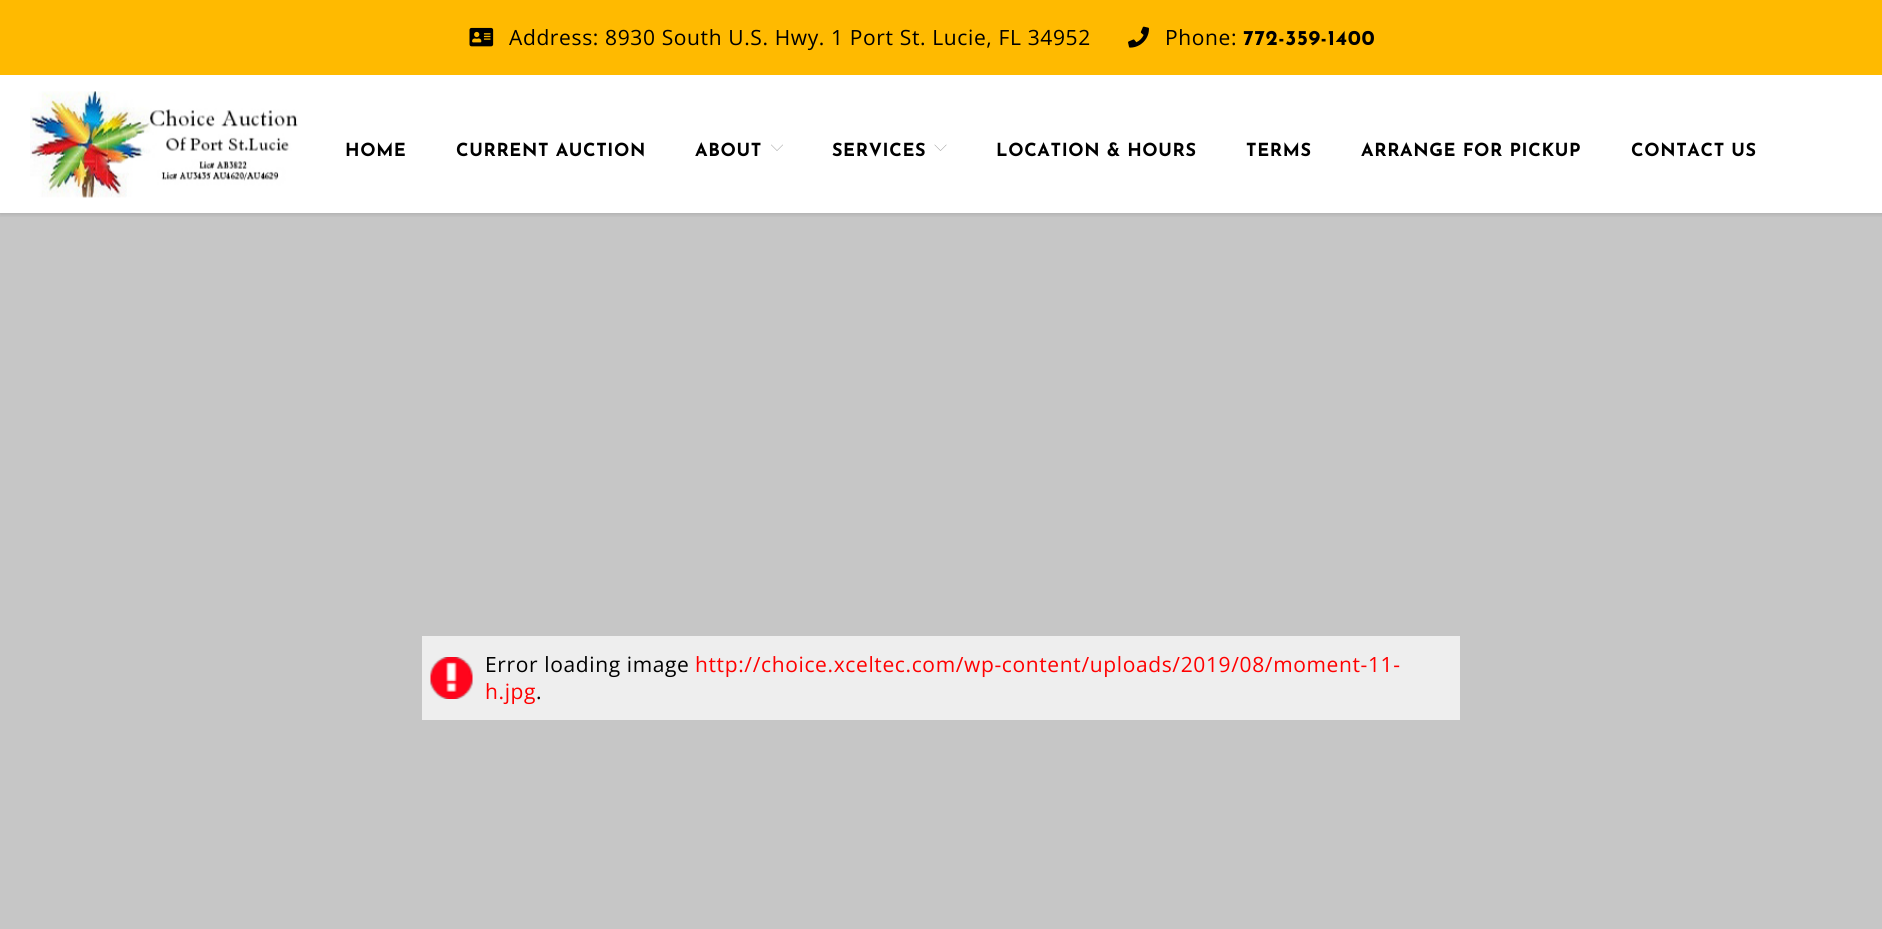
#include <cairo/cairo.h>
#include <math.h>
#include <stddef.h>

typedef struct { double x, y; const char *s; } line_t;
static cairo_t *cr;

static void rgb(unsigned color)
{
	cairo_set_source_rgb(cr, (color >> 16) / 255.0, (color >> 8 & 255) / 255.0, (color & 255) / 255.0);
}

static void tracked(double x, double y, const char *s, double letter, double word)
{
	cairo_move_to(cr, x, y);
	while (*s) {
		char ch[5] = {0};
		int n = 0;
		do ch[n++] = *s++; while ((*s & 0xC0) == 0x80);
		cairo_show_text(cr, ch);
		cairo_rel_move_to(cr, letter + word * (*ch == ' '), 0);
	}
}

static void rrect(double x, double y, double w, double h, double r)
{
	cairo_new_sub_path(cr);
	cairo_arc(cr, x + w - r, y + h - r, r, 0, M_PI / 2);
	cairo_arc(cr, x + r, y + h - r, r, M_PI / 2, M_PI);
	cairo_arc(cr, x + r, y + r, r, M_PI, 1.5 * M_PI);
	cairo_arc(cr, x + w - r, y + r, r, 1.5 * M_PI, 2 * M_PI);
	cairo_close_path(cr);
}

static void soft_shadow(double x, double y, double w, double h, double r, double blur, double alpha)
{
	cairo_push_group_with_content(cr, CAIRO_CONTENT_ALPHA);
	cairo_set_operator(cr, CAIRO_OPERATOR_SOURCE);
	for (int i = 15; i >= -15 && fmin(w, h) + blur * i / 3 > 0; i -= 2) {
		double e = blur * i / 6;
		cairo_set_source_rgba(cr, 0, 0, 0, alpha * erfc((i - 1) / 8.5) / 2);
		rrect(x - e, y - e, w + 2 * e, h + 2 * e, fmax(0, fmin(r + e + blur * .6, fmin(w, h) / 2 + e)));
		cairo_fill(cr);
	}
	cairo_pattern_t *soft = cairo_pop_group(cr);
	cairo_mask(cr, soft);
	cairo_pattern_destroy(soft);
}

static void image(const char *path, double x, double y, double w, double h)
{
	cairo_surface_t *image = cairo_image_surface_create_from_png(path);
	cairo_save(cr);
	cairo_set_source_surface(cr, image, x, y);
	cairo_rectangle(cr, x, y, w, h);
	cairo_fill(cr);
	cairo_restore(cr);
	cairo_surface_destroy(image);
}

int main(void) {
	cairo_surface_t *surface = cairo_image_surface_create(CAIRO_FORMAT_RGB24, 1882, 929);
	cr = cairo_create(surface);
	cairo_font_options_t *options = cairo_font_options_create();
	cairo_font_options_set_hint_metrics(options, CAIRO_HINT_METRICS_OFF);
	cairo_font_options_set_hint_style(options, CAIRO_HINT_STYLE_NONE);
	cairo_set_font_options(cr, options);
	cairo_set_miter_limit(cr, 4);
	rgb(0xffffff);
	cairo_paint(cr);
	rgb(0xc6c6c6);
	cairo_rectangle(cr, 0, 213, 1882, 716);
	cairo_fill(cr);
	cairo_save(cr);
	cairo_rectangle(cr, 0, 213, 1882, 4);
	cairo_clip(cr);
	rgb(0x000000);
	soft_shadow(0, 0, 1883, 213, 0, 3, 0.2);
	cairo_restore(cr);
	rgb(0xffba00);
	cairo_rectangle(cr, 0, 0, 1882, 75);
	cairo_fill(cr);
	image("img/1.png", 469, 27, 25, 20);
	image("img/2.png", 1128, 26, 21, 22);
	image("img/3.png", 30, 91, 268, 107);
	image("img/4.png", 771, 144, 12, 7);
	image("img/5.png", 934, 144, 13, 7);
	rgb(0xeeeeee);
	cairo_rectangle(cr, 422, 636, 1038, 84);
	cairo_fill(cr);
	image("img/6.png", 430, 657, 43, 42);
	cairo_select_font_face(cr, "Open Sans", CAIRO_FONT_SLANT_NORMAL, CAIRO_FONT_WEIGHT_NORMAL);
	cairo_set_font_size(cr, 21);
	rgb(0x000000);
	tracked(509, 45, "Address: 8930 South U.S. Hwy. 1 Port St. Lucie, FL 34952", 0.63, 0);
	tracked(1165, 45, "Phone:", 0.63, 0);
	cairo_select_font_face(cr, "Josefin Sans", CAIRO_FONT_SLANT_NORMAL, CAIRO_FONT_WEIGHT_BOLD);
	tracked(1243, 45, "772-359-1400", 0.63, 0);
	cairo_set_font_size(cr, 18);
	{
		static const line_t items[] = {
			{345, 156, "HOME"},
			{456, 156, "CURRENT AUCTION"},
			{695, 156, "ABOUT"},
			{832, 156, "SERVICES"},
			{996, 156, "LOCATION & HOURS"},
			{1246, 156, "TERMS"},
			{1361, 156, "ARRANGE FOR PICKUP"},
			{1631, 156, "CONTACT US"},
		};
		for (size_t i = 0; i < sizeof items / sizeof *items; i++) {
			tracked(items[i].x, items[i].y, items[i].s, 0.63, 0);
		}
	}
	cairo_select_font_face(cr, "Open Sans", CAIRO_FONT_SLANT_NORMAL, CAIRO_FONT_WEIGHT_NORMAL);
	cairo_set_font_size(cr, 21);
	tracked(485, 672, "Error loading image", 0.63, 0);
	rgb(0xff0000);
	tracked(695, 672, "http://choice.xceltec.com/wp-content/uploads/2019/08/moment-11-", 0.63, 0);
	tracked(485, 699, "h.jpg", 0.63, 0);
	rgb(0x000000);
	tracked(536, 699, ".", 0.63, 0);
	cairo_surface_write_to_png(surface, "page.png");
	cairo_font_options_destroy(options);
	cairo_destroy(cr);
	cairo_surface_destroy(surface);
	return 0;
}
